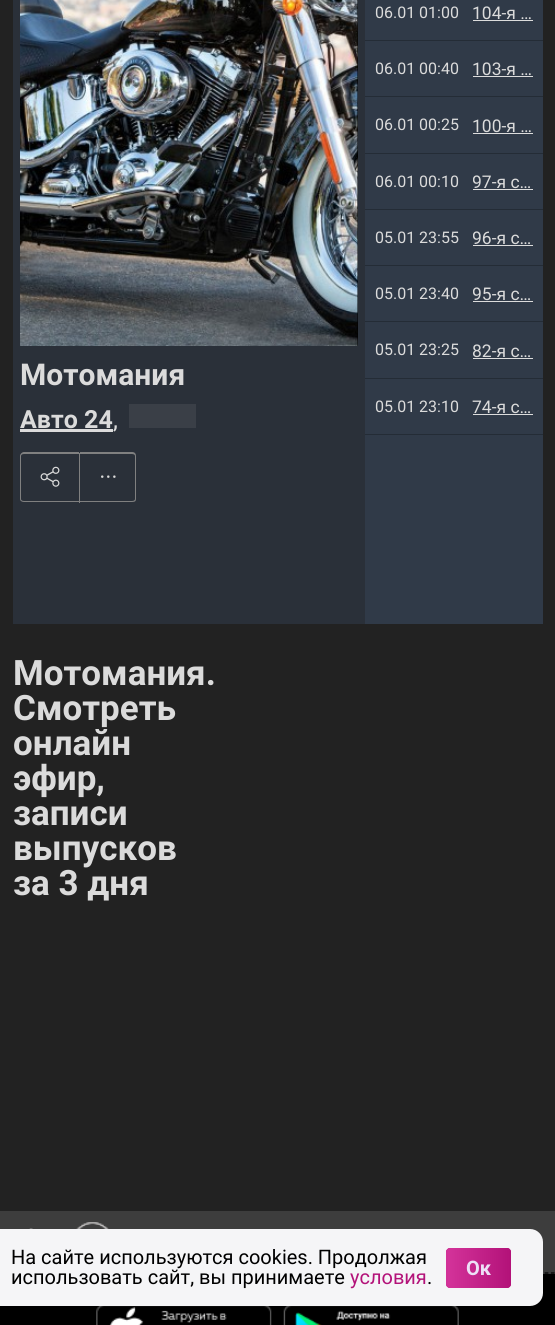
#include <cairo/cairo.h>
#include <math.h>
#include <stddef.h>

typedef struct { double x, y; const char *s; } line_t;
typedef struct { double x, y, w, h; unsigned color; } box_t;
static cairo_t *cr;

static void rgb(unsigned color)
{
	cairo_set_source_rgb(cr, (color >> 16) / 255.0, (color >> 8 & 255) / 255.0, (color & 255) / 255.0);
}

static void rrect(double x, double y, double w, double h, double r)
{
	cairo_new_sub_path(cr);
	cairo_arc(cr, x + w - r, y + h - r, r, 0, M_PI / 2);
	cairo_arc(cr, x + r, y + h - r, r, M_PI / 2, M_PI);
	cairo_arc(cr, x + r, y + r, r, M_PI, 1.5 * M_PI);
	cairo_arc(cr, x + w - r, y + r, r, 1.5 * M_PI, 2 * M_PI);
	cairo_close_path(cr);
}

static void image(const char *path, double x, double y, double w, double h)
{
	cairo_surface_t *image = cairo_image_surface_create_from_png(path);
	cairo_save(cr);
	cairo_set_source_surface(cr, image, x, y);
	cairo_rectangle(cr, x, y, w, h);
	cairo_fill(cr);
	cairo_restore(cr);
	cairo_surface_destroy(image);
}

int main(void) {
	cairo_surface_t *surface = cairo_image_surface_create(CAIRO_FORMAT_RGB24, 555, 1325);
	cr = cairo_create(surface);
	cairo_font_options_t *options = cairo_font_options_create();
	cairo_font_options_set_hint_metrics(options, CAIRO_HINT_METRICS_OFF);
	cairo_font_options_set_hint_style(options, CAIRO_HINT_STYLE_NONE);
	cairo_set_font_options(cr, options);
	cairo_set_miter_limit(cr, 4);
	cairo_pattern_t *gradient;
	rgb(0x222222);
	cairo_paint(cr);
	rgb(0x2a3039);
	cairo_rectangle(cr, 13, 0, 352, 624);
	cairo_fill(cr);
	rgb(0x000000);
	cairo_rectangle(cr, 357, 0, 1, 346);
	cairo_fill(cr);
	image("img/1.png", 20, 0, 338, 346);
	rgb(0xdbdbdb);
	cairo_rectangle(cr, 20, 429, 93, 3);
	cairo_fill(cr);
	rgb(0x3a3f47);
	cairo_rectangle(cr, 129, 404, 67, 24);
	cairo_fill(cr);
	rgb(0x808080);
	cairo_set_fill_rule(cr, CAIRO_FILL_RULE_EVEN_ODD);
	cairo_new_path(cr);
	cairo_move_to(cr, 24, 452);
	cairo_line_to(cr, 79, 452);
	cairo_line_to(cr, 79, 502);
	cairo_line_to(cr, 24, 502);
	cairo_curve_to(cr, 22, 502, 20, 501, 20, 499);
	cairo_line_to(cr, 20, 456);
	cairo_curve_to(cr, 20, 454, 22, 452, 24, 452);
	cairo_close_path(cr);
	cairo_move_to(cr, 24, 454);
	cairo_line_to(cr, 79, 454);
	cairo_line_to(cr, 79, 501);
	cairo_line_to(cr, 24, 501);
	cairo_curve_to(cr, 22, 501, 21, 500, 21, 499);
	cairo_line_to(cr, 21, 456);
	cairo_curve_to(cr, 21, 455, 22, 454, 24, 454);
	cairo_close_path(cr);
	cairo_fill(cr);
	image("img/2.png", 40, 466, 20, 21);
	cairo_rectangle(cr, 79, 453, 1, 50);
	cairo_fill(cr);
	cairo_new_path(cr);
	cairo_move_to(cr, 80, 452);
	cairo_line_to(cr, 132, 452);
	cairo_curve_to(cr, 135, 452, 136, 454, 136, 456);
	cairo_line_to(cr, 136, 499);
	cairo_curve_to(cr, 136, 501, 135, 502, 132, 502);
	cairo_line_to(cr, 80, 502);
	cairo_close_path(cr);
	cairo_move_to(cr, 80, 454);
	cairo_line_to(cr, 132, 454);
	cairo_curve_to(cr, 134, 454, 135, 455, 135, 456);
	cairo_line_to(cr, 135, 499);
	cairo_curve_to(cr, 135, 500, 134, 501, 132, 501);
	cairo_line_to(cr, 80, 501);
	cairo_close_path(cr);
	cairo_fill(cr);
	image("img/3.png", 101, 475, 15, 3);
	{
		static const box_t items[] = {
			{365, 0, 178, 624, 0x303a48},
			{365, 40, 178, 1, 0x242c36},
			{473, 20, 60, 1, 0xdcdcdc},
			{365, 96, 178, 1, 0x242c36},
			{473, 76, 60, 1, 0xdcdcdc},
			{365, 153, 178, 1, 0x242c36},
			{473, 133, 60, 1, 0xdcdcdc},
			{365, 209, 178, 1, 0x242c36},
			{473, 189, 60, 1, 0xdcdcdc},
			{365, 265, 178, 1, 0x242c36},
			{473, 245, 60, 1, 0xdcdcdc},
			{365, 321, 178, 1, 0x242c36},
			{473, 301, 60, 1, 0xdcdcdc},
			{365, 378, 178, 1, 0x242c36},
			{473, 358, 60, 1, 0xdcdcdc},
			{365, 434, 178, 1, 0x242c36},
			{473, 414, 60, 1, 0xdcdcdc},
			{0, 1211, 555, 63, 0x3d3d3d},
		};
		for (size_t i = 0; i < sizeof items / sizeof *items; i++) {
			rgb(items[i].color);
			cairo_rectangle(cr, items[i].x, items[i].y, items[i].w, items[i].h);
			cairo_fill(cr);
		}
	}
	cairo_new_path(cr);
	cairo_move_to(cr, 0, 1273);
	cairo_line_to(cr, 555, 1273);
	rgb(0x000000);
	cairo_set_line_width(cr, 1.2);
	cairo_set_dash(cr, (double[]){3.75, 2.51}, 2, 0);
	cairo_stroke(cr);
	image("img/4.png", 29, 1228, 4, 1);
	image("img/5.png", 76, 1222, 33, 7);
	cairo_rectangle(cr, 0, 1274, 555, 51);
	cairo_fill(cr);
	rgb(0xf5f5f7);
	rrect(-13, 1229, 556, 77, 13);
	cairo_fill(cr);
	rgb(0xb31279);
	rrect(446, 1248, 65, 40, 4);
	cairo_fill(cr);
	cairo_save(cr);
	cairo_set_fill_rule(cr, CAIRO_FILL_RULE_WINDING);
	rrect(446, 1248, 65, 40, 4);
	cairo_clip(cr);
	gradient = cairo_pattern_create_linear(385, 1268, 510, 1268);
	cairo_pattern_add_color_stop_rgba(gradient, 0, 0.702, 0.071, 0.475, 1);
	cairo_pattern_add_color_stop_rgba(gradient, 0.51, 0.827, 0.196, 0.6, 1);
	cairo_pattern_add_color_stop_rgba(gradient, 1, 0.702, 0.071, 0.475, 1);
	cairo_set_source(cr, gradient);
	cairo_pattern_destroy(gradient);
	cairo_new_path(cr);
	cairo_move_to(cr, 450, 1248);
	cairo_line_to(cr, 510, 1248);
	cairo_line_to(cr, 510, 1288);
	cairo_line_to(cr, 450, 1288);
	cairo_curve_to(cr, 448, 1288, 446, 1286, 446, 1284);
	cairo_line_to(cr, 446, 1252);
	cairo_curve_to(cr, 446, 1250, 448, 1248, 450, 1248);
	cairo_close_path(cr);
	cairo_fill(cr);
	gradient = cairo_pattern_create_linear(510, 1268, 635, 1268);
	cairo_pattern_add_color_stop_rgba(gradient, 0, 0.702, 0.071, 0.475, 1);
	cairo_pattern_add_color_stop_rgba(gradient, 0.51, 0.827, 0.196, 0.6, 1);
	cairo_pattern_add_color_stop_rgba(gradient, 1, 0.702, 0.071, 0.475, 1);
	cairo_set_source(cr, gradient);
	cairo_pattern_destroy(gradient);
	cairo_rectangle(cr, 510, 1248, 1, 40);
	cairo_fill(cr);
	cairo_restore(cr);
	image("img/6.png", 96, 1306, 176, 19);
	image("img/7.png", 283, 1306, 176, 19);
	cairo_select_font_face(cr, "Roboto", CAIRO_FONT_SLANT_NORMAL, CAIRO_FONT_WEIGHT_BOLD);
	cairo_set_font_size(cr, 30);
	rgb(0xdbdbdb);
	cairo_move_to(cr, 20, 385);
	cairo_show_text(cr, "Мотомания");
	cairo_set_font_size(cr, 25);
	cairo_move_to(cr, 20, 428);
	cairo_show_text(cr, "Авто 24");
	cairo_select_font_face(cr, "Roboto", CAIRO_FONT_SLANT_NORMAL, CAIRO_FONT_WEIGHT_NORMAL);
	cairo_move_to(cr, 113, 428);
	cairo_show_text(cr, ",");
	cairo_set_font_size(cr, 16);
	cairo_move_to(cr, 375, 18);
	cairo_show_text(cr, "06.01 01:00");
	cairo_set_font_size(cr, 17.5);
	cairo_move_to(cr, 472, 19);
	cairo_show_text(cr, "104-я …");
	cairo_set_font_size(cr, 16);
	cairo_move_to(cr, 375, 74);
	cairo_show_text(cr, "06.01 00:40");
	cairo_set_font_size(cr, 17.5);
	cairo_move_to(cr, 472, 75);
	cairo_show_text(cr, "103-я …");
	cairo_set_font_size(cr, 16);
	cairo_move_to(cr, 375, 130);
	cairo_show_text(cr, "06.01 00:25");
	cairo_set_font_size(cr, 17.5);
	cairo_move_to(cr, 472, 132);
	cairo_show_text(cr, "100-я …");
	cairo_set_font_size(cr, 16);
	cairo_move_to(cr, 375, 187);
	cairo_show_text(cr, "06.01 00:10");
	cairo_save(cr);
	cairo_set_fill_rule(cr, CAIRO_FILL_RULE_WINDING);
	cairo_rectangle(cr, 473, 169, 60, 25);
	cairo_clip(cr);
	cairo_set_font_size(cr, 17.5);
	cairo_move_to(cr, 472, 188);
	cairo_show_text(cr, "97-я с…");
	cairo_restore(cr);
	cairo_move_to(cr, 375, 243);
	cairo_show_text(cr, "05.01 23:55");
	cairo_save(cr);
	cairo_set_fill_rule(cr, CAIRO_FILL_RULE_WINDING);
	cairo_rectangle(cr, 473, 225, 60, 25);
	cairo_clip(cr);
	cairo_set_font_size(cr, 17.5);
	cairo_move_to(cr, 472, 244);
	cairo_show_text(cr, "96-я с…");
	cairo_restore(cr);
	cairo_move_to(cr, 375, 299);
	cairo_show_text(cr, "05.01 23:40");
	cairo_save(cr);
	cairo_set_fill_rule(cr, CAIRO_FILL_RULE_WINDING);
	cairo_rectangle(cr, 473, 281, 60, 25);
	cairo_clip(cr);
	cairo_set_font_size(cr, 17.5);
	cairo_move_to(cr, 472, 300);
	cairo_show_text(cr, "95-я с…");
	cairo_restore(cr);
	cairo_move_to(cr, 375, 355);
	cairo_show_text(cr, "05.01 23:25");
	cairo_set_font_size(cr, 17.5);
	cairo_move_to(cr, 472, 357);
	cairo_show_text(cr, "82-я с…");
	cairo_set_font_size(cr, 16);
	cairo_move_to(cr, 375, 412);
	cairo_show_text(cr, "05.01 23:10");
	cairo_set_font_size(cr, 17.5);
	cairo_move_to(cr, 472, 413);
	cairo_show_text(cr, "74-я с…");
	cairo_select_font_face(cr, "Roboto", CAIRO_FONT_SLANT_NORMAL, CAIRO_FONT_WEIGHT_BOLD);
	cairo_set_font_size(cr, 35);
	{
		static const line_t items[] = {
			{13, 685, "Мотомания."},
			{13, 720, "Смотреть"},
			{13, 755, "онлайн"},
			{13, 790, "эфир,"},
			{13, 825, "записи"},
			{13, 860, "выпусков"},
			{13, 895, "за 3 дня"},
		};
		for (size_t i = 0; i < sizeof items / sizeof *items; i++) {
			cairo_move_to(cr, items[i].x, items[i].y);
			cairo_show_text(cr, items[i].s);
		}
	}
	cairo_select_font_face(cr, "Roboto", CAIRO_FONT_SLANT_NORMAL, CAIRO_FONT_WEIGHT_NORMAL);
	cairo_set_font_size(cr, 20);
	rgb(0x000000);
	cairo_move_to(cr, 11, 1264);
	cairo_show_text(cr, "На сайте используются cookies. Продолжая");
	cairo_move_to(cr, 11, 1284);
	cairo_show_text(cr, "использовать сайт, вы принимаете");
	rgb(0xb31279);
	cairo_move_to(cr, 350, 1284);
	cairo_show_text(cr, "условия");
	rgb(0x000000);
	cairo_move_to(cr, 427, 1284);
	cairo_show_text(cr, ".");
	cairo_select_font_face(cr, "Roboto", CAIRO_FONT_SLANT_NORMAL, CAIRO_FONT_WEIGHT_BOLD);
	rgb(0xede0f7);
	cairo_move_to(cr, 466, 1275);
	cairo_show_text(cr, "Ок");
	cairo_surface_write_to_png(surface, "page.png");
	cairo_font_options_destroy(options);
	cairo_destroy(cr);
	cairo_surface_destroy(surface);
	return 0;
}
